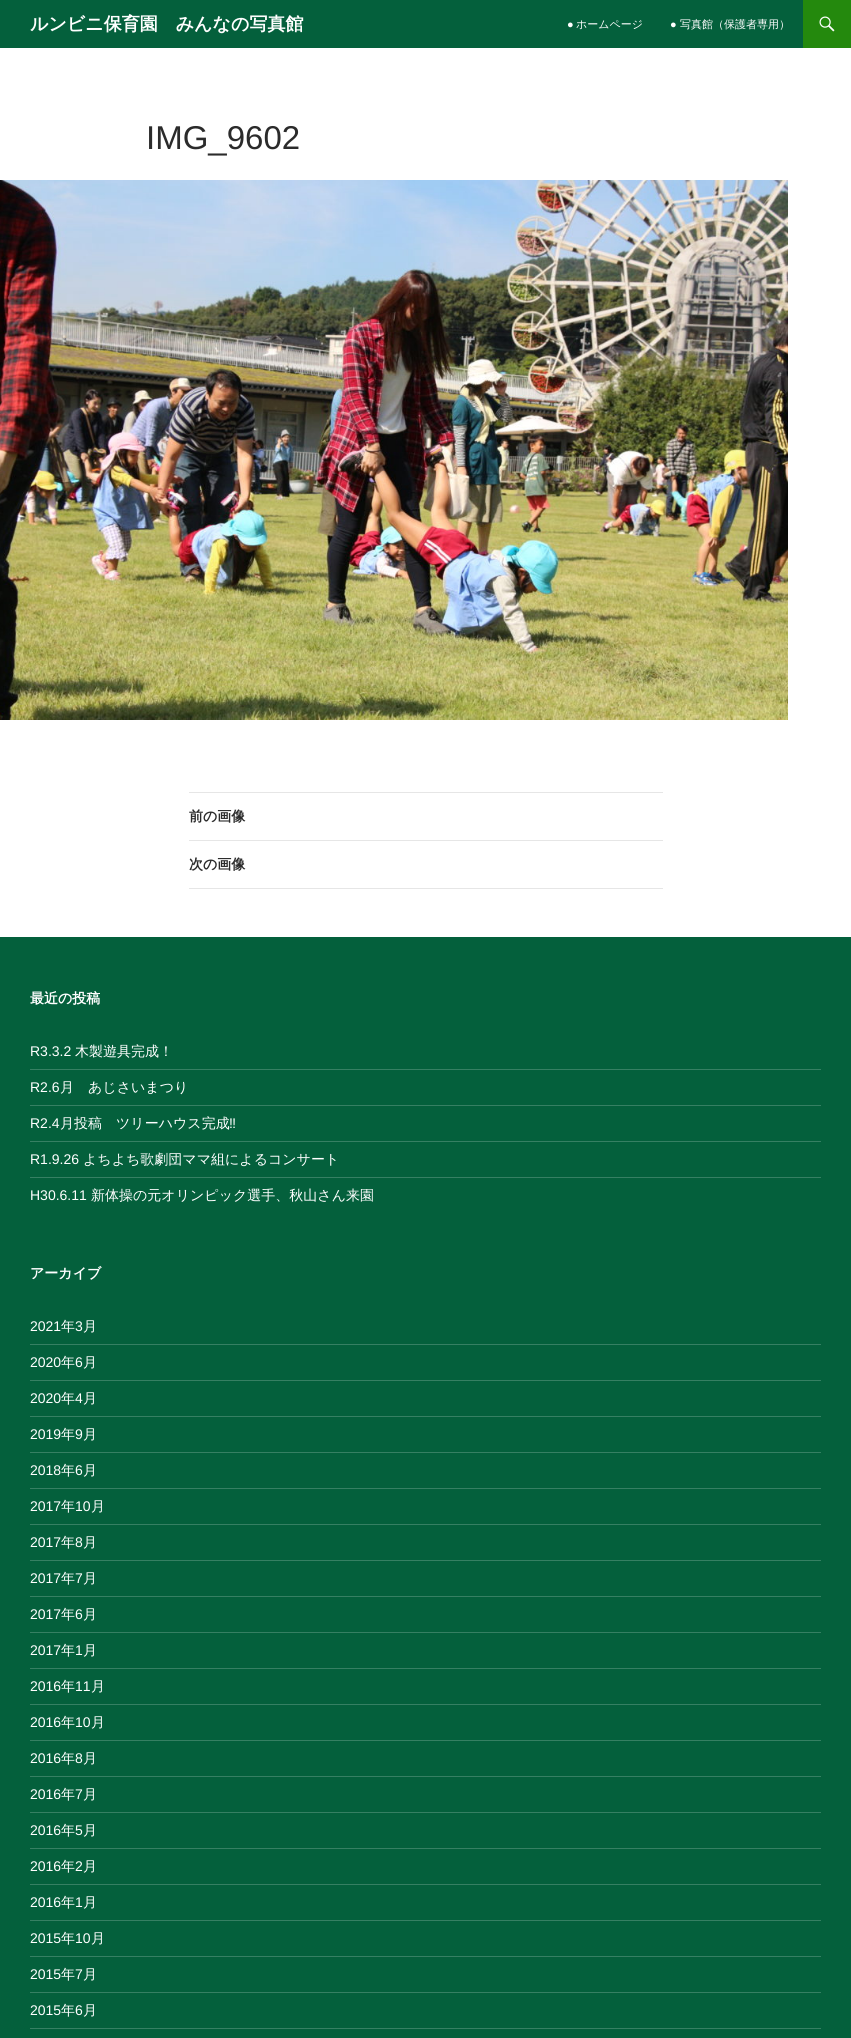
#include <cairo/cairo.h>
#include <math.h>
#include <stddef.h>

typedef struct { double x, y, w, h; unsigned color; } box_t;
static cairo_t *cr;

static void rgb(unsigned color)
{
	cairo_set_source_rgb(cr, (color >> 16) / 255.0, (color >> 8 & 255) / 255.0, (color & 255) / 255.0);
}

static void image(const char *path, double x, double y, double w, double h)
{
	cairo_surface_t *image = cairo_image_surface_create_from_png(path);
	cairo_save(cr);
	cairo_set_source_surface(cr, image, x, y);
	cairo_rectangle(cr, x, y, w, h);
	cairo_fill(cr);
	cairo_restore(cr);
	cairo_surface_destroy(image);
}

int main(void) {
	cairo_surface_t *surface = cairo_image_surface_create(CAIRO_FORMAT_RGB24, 851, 2038);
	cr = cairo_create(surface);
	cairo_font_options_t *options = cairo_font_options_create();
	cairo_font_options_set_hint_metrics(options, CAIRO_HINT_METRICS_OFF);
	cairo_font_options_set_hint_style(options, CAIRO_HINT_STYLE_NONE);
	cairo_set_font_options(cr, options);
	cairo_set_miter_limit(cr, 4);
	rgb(0xffffff);
	cairo_paint(cr);
	rgb(0x04603c);
	cairo_rectangle(cr, 0, 0, 803, 48);
	cairo_fill(cr);
	rgb(0x24890d);
	cairo_rectangle(cr, 803, 0, 48, 48);
	cairo_fill(cr);
	image("img/1.png", 819, 16, 16, 16);
	image("img/2.png", 0, 180, 788, 540);
	{
		static const box_t items[] = {
			{189, 792, 474, 1, 0xe6e6e6},
			{189, 840, 474, 1, 0xe6e6e6},
			{189, 888, 474, 1, 0xe6e6e6},
			{0, 937, 851, 1101, 0x04603c},
			{30, 1069, 791, 1, 0x368063},
			{30, 1105, 791, 1, 0x368063},
			{30, 1141, 791, 1, 0x368063},
			{30, 1177, 791, 1, 0x368063},
			{30, 1344, 791, 1, 0x368063},
			{30, 1380, 791, 1, 0x368063},
			{30, 1416, 791, 1, 0x368063},
			{30, 1452, 791, 1, 0x368063},
			{30, 1488, 791, 1, 0x368063},
			{30, 1524, 791, 1, 0x368063},
			{30, 1560, 791, 1, 0x368063},
			{30, 1596, 791, 1, 0x368063},
			{30, 1632, 791, 1, 0x368063},
			{30, 1668, 791, 1, 0x368063},
			{30, 1704, 791, 1, 0x368063},
			{30, 1740, 791, 1, 0x368063},
			{30, 1776, 791, 1, 0x368063},
			{30, 1812, 791, 1, 0x368063},
			{30, 1848, 791, 1, 0x368063},
			{30, 1884, 791, 1, 0x368063},
			{30, 1920, 791, 1, 0x368063},
			{30, 1956, 791, 1, 0x368063},
			{30, 1992, 791, 1, 0x368063},
			{30, 2028, 791, 1, 0x368063},
		};
		for (size_t i = 0; i < sizeof items / sizeof *items; i++) {
			rgb(items[i].color);
			cairo_rectangle(cr, items[i].x, items[i].y, items[i].w, items[i].h);
			cairo_fill(cr);
		}
	}
	cairo_select_font_face(cr, "WenQuanYi Zen Hei", CAIRO_FONT_SLANT_NORMAL, CAIRO_FONT_WEIGHT_BOLD);
	cairo_set_font_size(cr, 18);
	rgb(0xffffff);
	cairo_move_to(cr, 30, 30);
	cairo_show_text(cr, "ルンビニ保育園　みんなの写真館");
	cairo_select_font_face(cr, "Liberation Sans", CAIRO_FONT_SLANT_NORMAL, CAIRO_FONT_WEIGHT_NORMAL);
	cairo_set_font_size(cr, 11);
	cairo_move_to(cr, 567, 28);
	cairo_show_text(cr, "●");
	cairo_select_font_face(cr, "WenQuanYi Zen Hei Medium", CAIRO_FONT_SLANT_NORMAL, CAIRO_FONT_WEIGHT_NORMAL);
	cairo_move_to(cr, 576, 28);
	cairo_show_text(cr, "ホームページ");
	cairo_select_font_face(cr, "Liberation Sans", CAIRO_FONT_SLANT_NORMAL, CAIRO_FONT_WEIGHT_NORMAL);
	cairo_move_to(cr, 670, 28);
	cairo_show_text(cr, "●");
	cairo_select_font_face(cr, "WenQuanYi Zen Hei Medium", CAIRO_FONT_SLANT_NORMAL, CAIRO_FONT_WEIGHT_NORMAL);
	cairo_move_to(cr, 680, 28);
	cairo_show_text(cr, "写真館（保護者専用）");
	cairo_select_font_face(cr, "Liberation Sans", CAIRO_FONT_SLANT_NORMAL, CAIRO_FONT_WEIGHT_NORMAL);
	cairo_set_font_size(cr, 33);
	rgb(0x2b2b2b);
	cairo_move_to(cr, 146, 149);
	cairo_show_text(cr, "IMG_9602");
	cairo_select_font_face(cr, "WenQuanYi Zen Hei", CAIRO_FONT_SLANT_NORMAL, CAIRO_FONT_WEIGHT_BOLD);
	cairo_set_font_size(cr, 14);
	cairo_move_to(cr, 189, 821);
	cairo_show_text(cr, "前の画像");
	cairo_move_to(cr, 189, 869);
	cairo_show_text(cr, "次の画像");
	rgb(0xffffff);
	cairo_move_to(cr, 30, 1003);
	cairo_show_text(cr, "最近の投稿");
	cairo_select_font_face(cr, "Liberation Sans", CAIRO_FONT_SLANT_NORMAL, CAIRO_FONT_WEIGHT_NORMAL);
	cairo_move_to(cr, 30, 1056);
	cairo_show_text(cr, "R3.3.2");
	cairo_select_font_face(cr, "WenQuanYi Zen Hei Medium", CAIRO_FONT_SLANT_NORMAL, CAIRO_FONT_WEIGHT_NORMAL);
	cairo_move_to(cr, 75, 1056);
	cairo_show_text(cr, "木製遊具完成！");
	cairo_select_font_face(cr, "Liberation Sans", CAIRO_FONT_SLANT_NORMAL, CAIRO_FONT_WEIGHT_NORMAL);
	cairo_move_to(cr, 30, 1092);
	cairo_show_text(cr, "R2.6");
	cairo_select_font_face(cr, "WenQuanYi Zen Hei Medium", CAIRO_FONT_SLANT_NORMAL, CAIRO_FONT_WEIGHT_NORMAL);
	cairo_move_to(cr, 60, 1092);
	cairo_show_text(cr, "月　あじさいまつり");
	cairo_select_font_face(cr, "Liberation Sans", CAIRO_FONT_SLANT_NORMAL, CAIRO_FONT_WEIGHT_NORMAL);
	cairo_move_to(cr, 30, 1128);
	cairo_show_text(cr, "R2.4");
	cairo_select_font_face(cr, "WenQuanYi Zen Hei Medium", CAIRO_FONT_SLANT_NORMAL, CAIRO_FONT_WEIGHT_NORMAL);
	cairo_move_to(cr, 60, 1128);
	cairo_show_text(cr, "月投稿　ツリーハウス完成");
	cairo_select_font_face(cr, "Liberation Sans", CAIRO_FONT_SLANT_NORMAL, CAIRO_FONT_WEIGHT_NORMAL);
	cairo_move_to(cr, 229, 1128);
	cairo_show_text(cr, "‼");
	cairo_move_to(cr, 30, 1164);
	cairo_show_text(cr, "R1.9.26");
	cairo_select_font_face(cr, "WenQuanYi Zen Hei Medium", CAIRO_FONT_SLANT_NORMAL, CAIRO_FONT_WEIGHT_NORMAL);
	cairo_move_to(cr, 83, 1164);
	cairo_show_text(cr, "よちよち歌劇団ママ組によるコンサート");
	cairo_select_font_face(cr, "Liberation Sans", CAIRO_FONT_SLANT_NORMAL, CAIRO_FONT_WEIGHT_NORMAL);
	cairo_move_to(cr, 30, 1200);
	cairo_show_text(cr, "H30.6.11");
	cairo_select_font_face(cr, "WenQuanYi Zen Hei Medium", CAIRO_FONT_SLANT_NORMAL, CAIRO_FONT_WEIGHT_NORMAL);
	cairo_move_to(cr, 91, 1200);
	cairo_show_text(cr, "新体操の元オリンピック選手、秋山さん来園");
	cairo_select_font_face(cr, "WenQuanYi Zen Hei", CAIRO_FONT_SLANT_NORMAL, CAIRO_FONT_WEIGHT_BOLD);
	cairo_move_to(cr, 30, 1278);
	cairo_show_text(cr, "アーカイブ");
	cairo_select_font_face(cr, "Liberation Sans", CAIRO_FONT_SLANT_NORMAL, CAIRO_FONT_WEIGHT_NORMAL);
	cairo_move_to(cr, 30, 1331);
	cairo_show_text(cr, "2021");
	cairo_select_font_face(cr, "WenQuanYi Zen Hei Medium", CAIRO_FONT_SLANT_NORMAL, CAIRO_FONT_WEIGHT_NORMAL);
	cairo_move_to(cr, 61, 1331);
	cairo_show_text(cr, "年");
	cairo_select_font_face(cr, "Liberation Sans", CAIRO_FONT_SLANT_NORMAL, CAIRO_FONT_WEIGHT_NORMAL);
	cairo_move_to(cr, 75, 1331);
	cairo_show_text(cr, "3");
	cairo_select_font_face(cr, "WenQuanYi Zen Hei Medium", CAIRO_FONT_SLANT_NORMAL, CAIRO_FONT_WEIGHT_NORMAL);
	cairo_move_to(cr, 83, 1331);
	cairo_show_text(cr, "月");
	cairo_select_font_face(cr, "Liberation Sans", CAIRO_FONT_SLANT_NORMAL, CAIRO_FONT_WEIGHT_NORMAL);
	cairo_move_to(cr, 30, 1367);
	cairo_show_text(cr, "2020");
	cairo_select_font_face(cr, "WenQuanYi Zen Hei Medium", CAIRO_FONT_SLANT_NORMAL, CAIRO_FONT_WEIGHT_NORMAL);
	cairo_move_to(cr, 61, 1367);
	cairo_show_text(cr, "年");
	cairo_select_font_face(cr, "Liberation Sans", CAIRO_FONT_SLANT_NORMAL, CAIRO_FONT_WEIGHT_NORMAL);
	cairo_move_to(cr, 75, 1367);
	cairo_show_text(cr, "6");
	cairo_select_font_face(cr, "WenQuanYi Zen Hei Medium", CAIRO_FONT_SLANT_NORMAL, CAIRO_FONT_WEIGHT_NORMAL);
	cairo_move_to(cr, 83, 1367);
	cairo_show_text(cr, "月");
	cairo_select_font_face(cr, "Liberation Sans", CAIRO_FONT_SLANT_NORMAL, CAIRO_FONT_WEIGHT_NORMAL);
	cairo_move_to(cr, 30, 1403);
	cairo_show_text(cr, "2020");
	cairo_select_font_face(cr, "WenQuanYi Zen Hei Medium", CAIRO_FONT_SLANT_NORMAL, CAIRO_FONT_WEIGHT_NORMAL);
	cairo_move_to(cr, 61, 1403);
	cairo_show_text(cr, "年");
	cairo_select_font_face(cr, "Liberation Sans", CAIRO_FONT_SLANT_NORMAL, CAIRO_FONT_WEIGHT_NORMAL);
	cairo_move_to(cr, 75, 1403);
	cairo_show_text(cr, "4");
	cairo_select_font_face(cr, "WenQuanYi Zen Hei Medium", CAIRO_FONT_SLANT_NORMAL, CAIRO_FONT_WEIGHT_NORMAL);
	cairo_move_to(cr, 83, 1403);
	cairo_show_text(cr, "月");
	cairo_select_font_face(cr, "Liberation Sans", CAIRO_FONT_SLANT_NORMAL, CAIRO_FONT_WEIGHT_NORMAL);
	cairo_move_to(cr, 30, 1439);
	cairo_show_text(cr, "2019");
	cairo_select_font_face(cr, "WenQuanYi Zen Hei Medium", CAIRO_FONT_SLANT_NORMAL, CAIRO_FONT_WEIGHT_NORMAL);
	cairo_move_to(cr, 61, 1439);
	cairo_show_text(cr, "年");
	cairo_select_font_face(cr, "Liberation Sans", CAIRO_FONT_SLANT_NORMAL, CAIRO_FONT_WEIGHT_NORMAL);
	cairo_move_to(cr, 75, 1439);
	cairo_show_text(cr, "9");
	cairo_select_font_face(cr, "WenQuanYi Zen Hei Medium", CAIRO_FONT_SLANT_NORMAL, CAIRO_FONT_WEIGHT_NORMAL);
	cairo_move_to(cr, 83, 1439);
	cairo_show_text(cr, "月");
	cairo_select_font_face(cr, "Liberation Sans", CAIRO_FONT_SLANT_NORMAL, CAIRO_FONT_WEIGHT_NORMAL);
	cairo_move_to(cr, 30, 1475);
	cairo_show_text(cr, "2018");
	cairo_select_font_face(cr, "WenQuanYi Zen Hei Medium", CAIRO_FONT_SLANT_NORMAL, CAIRO_FONT_WEIGHT_NORMAL);
	cairo_move_to(cr, 61, 1475);
	cairo_show_text(cr, "年");
	cairo_select_font_face(cr, "Liberation Sans", CAIRO_FONT_SLANT_NORMAL, CAIRO_FONT_WEIGHT_NORMAL);
	cairo_move_to(cr, 75, 1475);
	cairo_show_text(cr, "6");
	cairo_select_font_face(cr, "WenQuanYi Zen Hei Medium", CAIRO_FONT_SLANT_NORMAL, CAIRO_FONT_WEIGHT_NORMAL);
	cairo_move_to(cr, 83, 1475);
	cairo_show_text(cr, "月");
	cairo_select_font_face(cr, "Liberation Sans", CAIRO_FONT_SLANT_NORMAL, CAIRO_FONT_WEIGHT_NORMAL);
	cairo_move_to(cr, 30, 1511);
	cairo_show_text(cr, "2017");
	cairo_select_font_face(cr, "WenQuanYi Zen Hei Medium", CAIRO_FONT_SLANT_NORMAL, CAIRO_FONT_WEIGHT_NORMAL);
	cairo_move_to(cr, 61, 1511);
	cairo_show_text(cr, "年");
	cairo_select_font_face(cr, "Liberation Sans", CAIRO_FONT_SLANT_NORMAL, CAIRO_FONT_WEIGHT_NORMAL);
	cairo_move_to(cr, 75, 1511);
	cairo_show_text(cr, "10");
	cairo_select_font_face(cr, "WenQuanYi Zen Hei Medium", CAIRO_FONT_SLANT_NORMAL, CAIRO_FONT_WEIGHT_NORMAL);
	cairo_move_to(cr, 91, 1511);
	cairo_show_text(cr, "月");
	cairo_select_font_face(cr, "Liberation Sans", CAIRO_FONT_SLANT_NORMAL, CAIRO_FONT_WEIGHT_NORMAL);
	cairo_move_to(cr, 30, 1547);
	cairo_show_text(cr, "2017");
	cairo_select_font_face(cr, "WenQuanYi Zen Hei Medium", CAIRO_FONT_SLANT_NORMAL, CAIRO_FONT_WEIGHT_NORMAL);
	cairo_move_to(cr, 61, 1547);
	cairo_show_text(cr, "年");
	cairo_select_font_face(cr, "Liberation Sans", CAIRO_FONT_SLANT_NORMAL, CAIRO_FONT_WEIGHT_NORMAL);
	cairo_move_to(cr, 75, 1547);
	cairo_show_text(cr, "8");
	cairo_select_font_face(cr, "WenQuanYi Zen Hei Medium", CAIRO_FONT_SLANT_NORMAL, CAIRO_FONT_WEIGHT_NORMAL);
	cairo_move_to(cr, 83, 1547);
	cairo_show_text(cr, "月");
	cairo_select_font_face(cr, "Liberation Sans", CAIRO_FONT_SLANT_NORMAL, CAIRO_FONT_WEIGHT_NORMAL);
	cairo_move_to(cr, 30, 1583);
	cairo_show_text(cr, "2017");
	cairo_select_font_face(cr, "WenQuanYi Zen Hei Medium", CAIRO_FONT_SLANT_NORMAL, CAIRO_FONT_WEIGHT_NORMAL);
	cairo_move_to(cr, 61, 1583);
	cairo_show_text(cr, "年");
	cairo_select_font_face(cr, "Liberation Sans", CAIRO_FONT_SLANT_NORMAL, CAIRO_FONT_WEIGHT_NORMAL);
	cairo_move_to(cr, 75, 1583);
	cairo_show_text(cr, "7");
	cairo_select_font_face(cr, "WenQuanYi Zen Hei Medium", CAIRO_FONT_SLANT_NORMAL, CAIRO_FONT_WEIGHT_NORMAL);
	cairo_move_to(cr, 83, 1583);
	cairo_show_text(cr, "月");
	cairo_select_font_face(cr, "Liberation Sans", CAIRO_FONT_SLANT_NORMAL, CAIRO_FONT_WEIGHT_NORMAL);
	cairo_move_to(cr, 30, 1619);
	cairo_show_text(cr, "2017");
	cairo_select_font_face(cr, "WenQuanYi Zen Hei Medium", CAIRO_FONT_SLANT_NORMAL, CAIRO_FONT_WEIGHT_NORMAL);
	cairo_move_to(cr, 61, 1619);
	cairo_show_text(cr, "年");
	cairo_select_font_face(cr, "Liberation Sans", CAIRO_FONT_SLANT_NORMAL, CAIRO_FONT_WEIGHT_NORMAL);
	cairo_move_to(cr, 75, 1619);
	cairo_show_text(cr, "6");
	cairo_select_font_face(cr, "WenQuanYi Zen Hei Medium", CAIRO_FONT_SLANT_NORMAL, CAIRO_FONT_WEIGHT_NORMAL);
	cairo_move_to(cr, 83, 1619);
	cairo_show_text(cr, "月");
	cairo_select_font_face(cr, "Liberation Sans", CAIRO_FONT_SLANT_NORMAL, CAIRO_FONT_WEIGHT_NORMAL);
	cairo_move_to(cr, 30, 1655);
	cairo_show_text(cr, "2017");
	cairo_select_font_face(cr, "WenQuanYi Zen Hei Medium", CAIRO_FONT_SLANT_NORMAL, CAIRO_FONT_WEIGHT_NORMAL);
	cairo_move_to(cr, 61, 1655);
	cairo_show_text(cr, "年");
	cairo_select_font_face(cr, "Liberation Sans", CAIRO_FONT_SLANT_NORMAL, CAIRO_FONT_WEIGHT_NORMAL);
	cairo_move_to(cr, 75, 1655);
	cairo_show_text(cr, "1");
	cairo_select_font_face(cr, "WenQuanYi Zen Hei Medium", CAIRO_FONT_SLANT_NORMAL, CAIRO_FONT_WEIGHT_NORMAL);
	cairo_move_to(cr, 83, 1655);
	cairo_show_text(cr, "月");
	cairo_select_font_face(cr, "Liberation Sans", CAIRO_FONT_SLANT_NORMAL, CAIRO_FONT_WEIGHT_NORMAL);
	cairo_move_to(cr, 30, 1691);
	cairo_show_text(cr, "2016");
	cairo_select_font_face(cr, "WenQuanYi Zen Hei Medium", CAIRO_FONT_SLANT_NORMAL, CAIRO_FONT_WEIGHT_NORMAL);
	cairo_move_to(cr, 61, 1691);
	cairo_show_text(cr, "年");
	cairo_select_font_face(cr, "Liberation Sans", CAIRO_FONT_SLANT_NORMAL, CAIRO_FONT_WEIGHT_NORMAL);
	cairo_move_to(cr, 75, 1691);
	cairo_show_text(cr, "11");
	cairo_select_font_face(cr, "WenQuanYi Zen Hei Medium", CAIRO_FONT_SLANT_NORMAL, CAIRO_FONT_WEIGHT_NORMAL);
	cairo_move_to(cr, 91, 1691);
	cairo_show_text(cr, "月");
	cairo_select_font_face(cr, "Liberation Sans", CAIRO_FONT_SLANT_NORMAL, CAIRO_FONT_WEIGHT_NORMAL);
	cairo_move_to(cr, 30, 1727);
	cairo_show_text(cr, "2016");
	cairo_select_font_face(cr, "WenQuanYi Zen Hei Medium", CAIRO_FONT_SLANT_NORMAL, CAIRO_FONT_WEIGHT_NORMAL);
	cairo_move_to(cr, 61, 1727);
	cairo_show_text(cr, "年");
	cairo_select_font_face(cr, "Liberation Sans", CAIRO_FONT_SLANT_NORMAL, CAIRO_FONT_WEIGHT_NORMAL);
	cairo_move_to(cr, 75, 1727);
	cairo_show_text(cr, "10");
	cairo_select_font_face(cr, "WenQuanYi Zen Hei Medium", CAIRO_FONT_SLANT_NORMAL, CAIRO_FONT_WEIGHT_NORMAL);
	cairo_move_to(cr, 91, 1727);
	cairo_show_text(cr, "月");
	cairo_select_font_face(cr, "Liberation Sans", CAIRO_FONT_SLANT_NORMAL, CAIRO_FONT_WEIGHT_NORMAL);
	cairo_move_to(cr, 30, 1763);
	cairo_show_text(cr, "2016");
	cairo_select_font_face(cr, "WenQuanYi Zen Hei Medium", CAIRO_FONT_SLANT_NORMAL, CAIRO_FONT_WEIGHT_NORMAL);
	cairo_move_to(cr, 61, 1763);
	cairo_show_text(cr, "年");
	cairo_select_font_face(cr, "Liberation Sans", CAIRO_FONT_SLANT_NORMAL, CAIRO_FONT_WEIGHT_NORMAL);
	cairo_move_to(cr, 75, 1763);
	cairo_show_text(cr, "8");
	cairo_select_font_face(cr, "WenQuanYi Zen Hei Medium", CAIRO_FONT_SLANT_NORMAL, CAIRO_FONT_WEIGHT_NORMAL);
	cairo_move_to(cr, 83, 1763);
	cairo_show_text(cr, "月");
	cairo_select_font_face(cr, "Liberation Sans", CAIRO_FONT_SLANT_NORMAL, CAIRO_FONT_WEIGHT_NORMAL);
	cairo_move_to(cr, 30, 1799);
	cairo_show_text(cr, "2016");
	cairo_select_font_face(cr, "WenQuanYi Zen Hei Medium", CAIRO_FONT_SLANT_NORMAL, CAIRO_FONT_WEIGHT_NORMAL);
	cairo_move_to(cr, 61, 1799);
	cairo_show_text(cr, "年");
	cairo_select_font_face(cr, "Liberation Sans", CAIRO_FONT_SLANT_NORMAL, CAIRO_FONT_WEIGHT_NORMAL);
	cairo_move_to(cr, 75, 1799);
	cairo_show_text(cr, "7");
	cairo_select_font_face(cr, "WenQuanYi Zen Hei Medium", CAIRO_FONT_SLANT_NORMAL, CAIRO_FONT_WEIGHT_NORMAL);
	cairo_move_to(cr, 83, 1799);
	cairo_show_text(cr, "月");
	cairo_select_font_face(cr, "Liberation Sans", CAIRO_FONT_SLANT_NORMAL, CAIRO_FONT_WEIGHT_NORMAL);
	cairo_move_to(cr, 30, 1835);
	cairo_show_text(cr, "2016");
	cairo_select_font_face(cr, "WenQuanYi Zen Hei Medium", CAIRO_FONT_SLANT_NORMAL, CAIRO_FONT_WEIGHT_NORMAL);
	cairo_move_to(cr, 61, 1835);
	cairo_show_text(cr, "年");
	cairo_select_font_face(cr, "Liberation Sans", CAIRO_FONT_SLANT_NORMAL, CAIRO_FONT_WEIGHT_NORMAL);
	cairo_move_to(cr, 75, 1835);
	cairo_show_text(cr, "5");
	cairo_select_font_face(cr, "WenQuanYi Zen Hei Medium", CAIRO_FONT_SLANT_NORMAL, CAIRO_FONT_WEIGHT_NORMAL);
	cairo_move_to(cr, 83, 1835);
	cairo_show_text(cr, "月");
	cairo_select_font_face(cr, "Liberation Sans", CAIRO_FONT_SLANT_NORMAL, CAIRO_FONT_WEIGHT_NORMAL);
	cairo_move_to(cr, 30, 1871);
	cairo_show_text(cr, "2016");
	cairo_select_font_face(cr, "WenQuanYi Zen Hei Medium", CAIRO_FONT_SLANT_NORMAL, CAIRO_FONT_WEIGHT_NORMAL);
	cairo_move_to(cr, 61, 1871);
	cairo_show_text(cr, "年");
	cairo_select_font_face(cr, "Liberation Sans", CAIRO_FONT_SLANT_NORMAL, CAIRO_FONT_WEIGHT_NORMAL);
	cairo_move_to(cr, 75, 1871);
	cairo_show_text(cr, "2");
	cairo_select_font_face(cr, "WenQuanYi Zen Hei Medium", CAIRO_FONT_SLANT_NORMAL, CAIRO_FONT_WEIGHT_NORMAL);
	cairo_move_to(cr, 83, 1871);
	cairo_show_text(cr, "月");
	cairo_select_font_face(cr, "Liberation Sans", CAIRO_FONT_SLANT_NORMAL, CAIRO_FONT_WEIGHT_NORMAL);
	cairo_move_to(cr, 30, 1907);
	cairo_show_text(cr, "2016");
	cairo_select_font_face(cr, "WenQuanYi Zen Hei Medium", CAIRO_FONT_SLANT_NORMAL, CAIRO_FONT_WEIGHT_NORMAL);
	cairo_move_to(cr, 61, 1907);
	cairo_show_text(cr, "年");
	cairo_select_font_face(cr, "Liberation Sans", CAIRO_FONT_SLANT_NORMAL, CAIRO_FONT_WEIGHT_NORMAL);
	cairo_move_to(cr, 75, 1907);
	cairo_show_text(cr, "1");
	cairo_select_font_face(cr, "WenQuanYi Zen Hei Medium", CAIRO_FONT_SLANT_NORMAL, CAIRO_FONT_WEIGHT_NORMAL);
	cairo_move_to(cr, 83, 1907);
	cairo_show_text(cr, "月");
	cairo_select_font_face(cr, "Liberation Sans", CAIRO_FONT_SLANT_NORMAL, CAIRO_FONT_WEIGHT_NORMAL);
	cairo_move_to(cr, 30, 1943);
	cairo_show_text(cr, "2015");
	cairo_select_font_face(cr, "WenQuanYi Zen Hei Medium", CAIRO_FONT_SLANT_NORMAL, CAIRO_FONT_WEIGHT_NORMAL);
	cairo_move_to(cr, 61, 1943);
	cairo_show_text(cr, "年");
	cairo_select_font_face(cr, "Liberation Sans", CAIRO_FONT_SLANT_NORMAL, CAIRO_FONT_WEIGHT_NORMAL);
	cairo_move_to(cr, 75, 1943);
	cairo_show_text(cr, "10");
	cairo_select_font_face(cr, "WenQuanYi Zen Hei Medium", CAIRO_FONT_SLANT_NORMAL, CAIRO_FONT_WEIGHT_NORMAL);
	cairo_move_to(cr, 91, 1943);
	cairo_show_text(cr, "月");
	cairo_select_font_face(cr, "Liberation Sans", CAIRO_FONT_SLANT_NORMAL, CAIRO_FONT_WEIGHT_NORMAL);
	cairo_move_to(cr, 30, 1979);
	cairo_show_text(cr, "2015");
	cairo_select_font_face(cr, "WenQuanYi Zen Hei Medium", CAIRO_FONT_SLANT_NORMAL, CAIRO_FONT_WEIGHT_NORMAL);
	cairo_move_to(cr, 61, 1979);
	cairo_show_text(cr, "年");
	cairo_select_font_face(cr, "Liberation Sans", CAIRO_FONT_SLANT_NORMAL, CAIRO_FONT_WEIGHT_NORMAL);
	cairo_move_to(cr, 75, 1979);
	cairo_show_text(cr, "7");
	cairo_select_font_face(cr, "WenQuanYi Zen Hei Medium", CAIRO_FONT_SLANT_NORMAL, CAIRO_FONT_WEIGHT_NORMAL);
	cairo_move_to(cr, 83, 1979);
	cairo_show_text(cr, "月");
	cairo_select_font_face(cr, "Liberation Sans", CAIRO_FONT_SLANT_NORMAL, CAIRO_FONT_WEIGHT_NORMAL);
	cairo_move_to(cr, 30, 2015);
	cairo_show_text(cr, "2015");
	cairo_select_font_face(cr, "WenQuanYi Zen Hei Medium", CAIRO_FONT_SLANT_NORMAL, CAIRO_FONT_WEIGHT_NORMAL);
	cairo_move_to(cr, 61, 2015);
	cairo_show_text(cr, "年");
	cairo_select_font_face(cr, "Liberation Sans", CAIRO_FONT_SLANT_NORMAL, CAIRO_FONT_WEIGHT_NORMAL);
	cairo_move_to(cr, 75, 2015);
	cairo_show_text(cr, "6");
	cairo_select_font_face(cr, "WenQuanYi Zen Hei Medium", CAIRO_FONT_SLANT_NORMAL, CAIRO_FONT_WEIGHT_NORMAL);
	cairo_move_to(cr, 83, 2015);
	cairo_show_text(cr, "月");
	cairo_surface_write_to_png(surface, "page.png");
	cairo_font_options_destroy(options);
	cairo_destroy(cr);
	cairo_surface_destroy(surface);
	return 0;
}
